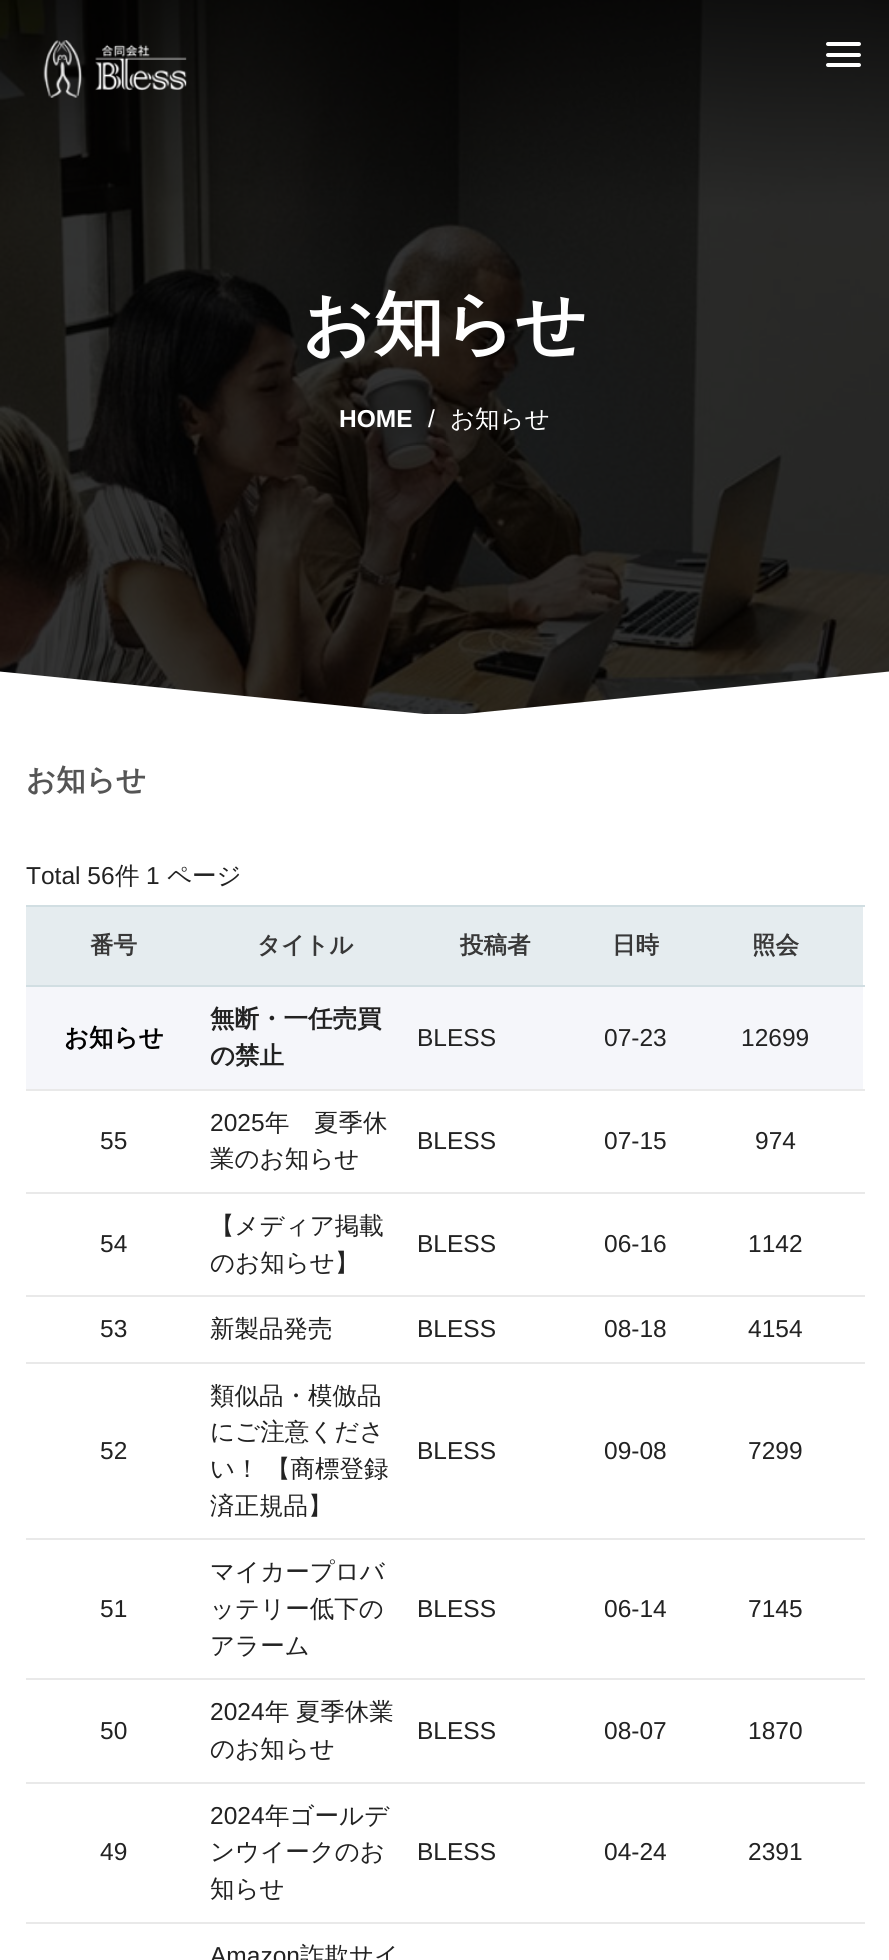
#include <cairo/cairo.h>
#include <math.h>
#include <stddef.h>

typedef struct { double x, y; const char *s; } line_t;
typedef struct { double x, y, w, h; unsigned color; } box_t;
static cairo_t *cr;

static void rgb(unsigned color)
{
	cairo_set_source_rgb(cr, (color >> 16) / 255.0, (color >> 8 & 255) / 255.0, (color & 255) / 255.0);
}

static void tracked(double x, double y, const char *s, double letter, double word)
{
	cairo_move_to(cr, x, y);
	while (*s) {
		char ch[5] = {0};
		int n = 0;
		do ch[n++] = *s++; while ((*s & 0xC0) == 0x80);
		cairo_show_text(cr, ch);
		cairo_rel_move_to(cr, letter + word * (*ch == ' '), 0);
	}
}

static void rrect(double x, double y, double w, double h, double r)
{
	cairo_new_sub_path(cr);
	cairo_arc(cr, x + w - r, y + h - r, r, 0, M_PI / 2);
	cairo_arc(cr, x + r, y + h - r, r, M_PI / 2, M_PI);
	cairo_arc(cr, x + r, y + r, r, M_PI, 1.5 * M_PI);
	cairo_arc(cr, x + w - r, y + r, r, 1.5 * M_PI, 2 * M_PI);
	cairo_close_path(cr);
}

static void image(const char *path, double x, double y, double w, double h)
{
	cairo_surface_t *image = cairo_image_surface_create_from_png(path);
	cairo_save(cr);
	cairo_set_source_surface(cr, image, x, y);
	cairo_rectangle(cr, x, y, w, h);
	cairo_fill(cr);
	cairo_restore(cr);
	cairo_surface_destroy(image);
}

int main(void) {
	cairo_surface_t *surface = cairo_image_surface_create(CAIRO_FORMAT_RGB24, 889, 1960);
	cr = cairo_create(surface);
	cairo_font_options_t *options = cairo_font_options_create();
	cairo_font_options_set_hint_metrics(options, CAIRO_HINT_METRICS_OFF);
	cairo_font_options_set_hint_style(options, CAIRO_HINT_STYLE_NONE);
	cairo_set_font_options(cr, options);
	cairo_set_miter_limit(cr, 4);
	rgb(0xffffff);
	cairo_paint(cr);
	image("img/2.png", 0, 0, 889, 714);
	image("img/1.png", 43, 40, 144, 58);
	rgb(0xffffff);
	rrect(826, 42, 35, 4, 2);
	cairo_fill(cr);
	rrect(826, 53, 35, 4, 2);
	cairo_fill(cr);
	rrect(826, 63, 35, 4, 2);
	cairo_fill(cr);
	cairo_new_path(cr);
	cairo_move_to(cr, 444, 716);
	cairo_line_to(cr, -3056, 716);
	cairo_line_to(cr, -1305, 541);
	cairo_close_path(cr);
	cairo_fill(cr);
	cairo_new_path(cr);
	cairo_move_to(cr, 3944, 716);
	cairo_line_to(cr, 444, 716);
	cairo_line_to(cr, 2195, 541);
	cairo_close_path(cr);
	cairo_fill(cr);
	{
		static const box_t items[] = {
			{26, 907, 837, 78, 0xe5ecef},
			{26, 905, 839, 2, 0xd1dee2},
			{26, 985, 839, 2, 0xd1dee2},
			{26, 987, 837, 102, 0xf5f6fa},
			{26, 1089, 839, 2, 0xe9e9e9},
			{26, 1192, 839, 2, 0xe9e9e9},
			{26, 1295, 839, 2, 0xe9e9e9},
			{26, 1362, 839, 2, 0xe9e9e9},
			{26, 1538, 839, 2, 0xe9e9e9},
			{26, 1678, 839, 2, 0xe9e9e9},
			{26, 1782, 839, 2, 0xe9e9e9},
			{26, 1922, 839, 2, 0xe9e9e9},
		};
		for (size_t i = 0; i < sizeof items / sizeof *items; i++) {
			rgb(items[i].color);
			cairo_rectangle(cr, items[i].x, items[i].y, items[i].w, items[i].h);
			cairo_fill(cr);
		}
	}
	cairo_select_font_face(cr, "WenQuanYi Zen Hei", CAIRO_FONT_SLANT_NORMAL, CAIRO_FONT_WEIGHT_BOLD);
	cairo_set_font_size(cr, 70);
	rgb(0xffffff);
	cairo_move_to(cr, 302, 348);
	cairo_show_text(cr, "お知らせ");
	cairo_select_font_face(cr, "Liberation Sans", CAIRO_FONT_SLANT_NORMAL, CAIRO_FONT_WEIGHT_BOLD);
	cairo_set_font_size(cr, 24.5);
	cairo_move_to(cr, 339, 427);
	cairo_show_text(cr, "HOME");
	cairo_select_font_face(cr, "Liberation Sans", CAIRO_FONT_SLANT_NORMAL, CAIRO_FONT_WEIGHT_NORMAL);
	cairo_move_to(cr, 428, 427);
	cairo_show_text(cr, "/");
	cairo_select_font_face(cr, "WenQuanYi Zen Hei Medium", CAIRO_FONT_SLANT_NORMAL, CAIRO_FONT_WEIGHT_NORMAL);
	cairo_move_to(cr, 450, 427);
	cairo_show_text(cr, "お知らせ");
	cairo_select_font_face(cr, "WenQuanYi Zen Hei", CAIRO_FONT_SLANT_NORMAL, CAIRO_FONT_WEIGHT_BOLD);
	cairo_set_font_size(cr, 29.5);
	rgb(0x555555);
	cairo_move_to(cr, 26, 790);
	cairo_show_text(cr, "お知らせ");
	cairo_select_font_face(cr, "Liberation Sans", CAIRO_FONT_SLANT_NORMAL, CAIRO_FONT_WEIGHT_NORMAL);
	cairo_set_font_size(cr, 24.5);
	rgb(0x222222);
	cairo_move_to(cr, 26, 884);
	cairo_show_text(cr, "Total 56");
	cairo_select_font_face(cr, "WenQuanYi Zen Hei Medium", CAIRO_FONT_SLANT_NORMAL, CAIRO_FONT_WEIGHT_NORMAL);
	cairo_move_to(cr, 115, 884);
	cairo_show_text(cr, "件");
	cairo_select_font_face(cr, "Liberation Sans", CAIRO_FONT_SLANT_NORMAL, CAIRO_FONT_WEIGHT_NORMAL);
	cairo_move_to(cr, 146, 884);
	cairo_show_text(cr, "1");
	cairo_select_font_face(cr, "WenQuanYi Zen Hei Medium", CAIRO_FONT_SLANT_NORMAL, CAIRO_FONT_WEIGHT_NORMAL);
	cairo_move_to(cr, 167, 884);
	cairo_show_text(cr, "ページ");
	cairo_select_font_face(cr, "WenQuanYi Zen Hei", CAIRO_FONT_SLANT_NORMAL, CAIRO_FONT_WEIGHT_BOLD);
	cairo_set_font_size(cr, 23.5);
	rgb(0x383838);
	{
		static const line_t items[] = {
			{90, 953, "番号"},
			{257, 953, "タイトル"},
			{460, 953, "投稿者"},
			{612, 953, "日時"},
			{752, 953, "照会"},
		};
		for (size_t i = 0; i < sizeof items / sizeof *items; i++) {
			cairo_move_to(cr, items[i].x, items[i].y);
			cairo_show_text(cr, items[i].s);
		}
	}
	cairo_set_font_size(cr, 24.5);
	rgb(0x000000);
	cairo_move_to(cr, 64, 1046);
	cairo_show_text(cr, "お知らせ");
	rgb(0x222222);
	cairo_move_to(cr, 210, 1027);
	cairo_show_text(cr, "無断・一任売買");
	cairo_move_to(cr, 210, 1064);
	cairo_show_text(cr, "の禁止");
	cairo_select_font_face(cr, "Liberation Sans", CAIRO_FONT_SLANT_NORMAL, CAIRO_FONT_WEIGHT_NORMAL);
	{
		static const line_t items[] = {
			{417, 1046, "BLESS"},
			{604, 1046, "07-23"},
			{741, 1046, "12699"},
			{100, 1149, "55"},
			{210, 1131, "2025"},
		};
		for (size_t i = 0; i < sizeof items / sizeof *items; i++) {
			cairo_move_to(cr, items[i].x, items[i].y);
			cairo_show_text(cr, items[i].s);
		}
	}
	cairo_select_font_face(cr, "WenQuanYi Zen Hei Medium", CAIRO_FONT_SLANT_NORMAL, CAIRO_FONT_WEIGHT_NORMAL);
	cairo_move_to(cr, 265, 1131);
	cairo_show_text(cr, "年　夏季休");
	cairo_move_to(cr, 210, 1167);
	cairo_show_text(cr, "業のお知らせ");
	cairo_select_font_face(cr, "Liberation Sans", CAIRO_FONT_SLANT_NORMAL, CAIRO_FONT_WEIGHT_NORMAL);
	{
		static const line_t items[] = {
			{417, 1149, "BLESS"},
			{604, 1149, "07-15"},
			{755, 1149, "974"},
			{100, 1252, "54"},
		};
		for (size_t i = 0; i < sizeof items / sizeof *items; i++) {
			cairo_move_to(cr, items[i].x, items[i].y);
			cairo_show_text(cr, items[i].s);
		}
	}
	cairo_select_font_face(cr, "WenQuanYi Zen Hei Medium", CAIRO_FONT_SLANT_NORMAL, CAIRO_FONT_WEIGHT_NORMAL);
	cairo_move_to(cr, 210, 1234);
	cairo_show_text(cr, "【メディア掲載");
	cairo_move_to(cr, 210, 1271);
	cairo_show_text(cr, "のお知らせ】");
	cairo_select_font_face(cr, "Liberation Sans", CAIRO_FONT_SLANT_NORMAL, CAIRO_FONT_WEIGHT_NORMAL);
	{
		static const line_t items[] = {
			{417, 1252, "BLESS"},
			{604, 1252, "06-16"},
			{748, 1252, "1142"},
			{100, 1337, "53"},
		};
		for (size_t i = 0; i < sizeof items / sizeof *items; i++) {
			cairo_move_to(cr, items[i].x, items[i].y);
			cairo_show_text(cr, items[i].s);
		}
	}
	cairo_select_font_face(cr, "WenQuanYi Zen Hei Medium", CAIRO_FONT_SLANT_NORMAL, CAIRO_FONT_WEIGHT_NORMAL);
	cairo_move_to(cr, 210, 1337);
	cairo_show_text(cr, "新製品発売");
	cairo_select_font_face(cr, "Liberation Sans", CAIRO_FONT_SLANT_NORMAL, CAIRO_FONT_WEIGHT_NORMAL);
	{
		static const line_t items[] = {
			{417, 1337, "BLESS"},
			{604, 1337, "08-18"},
			{748, 1337, "4154"},
			{100, 1459, "52"},
		};
		for (size_t i = 0; i < sizeof items / sizeof *items; i++) {
			cairo_move_to(cr, items[i].x, items[i].y);
			cairo_show_text(cr, items[i].s);
		}
	}
	cairo_select_font_face(cr, "WenQuanYi Zen Hei Medium", CAIRO_FONT_SLANT_NORMAL, CAIRO_FONT_WEIGHT_NORMAL);
	{
		static const line_t items[] = {
			{210, 1404, "類似品・模倣品"},
			{210, 1440, "にご注意くださ"},
			{210, 1477, "い！"},
			{266, 1477, "【商標登録"},
			{210, 1514, "済正規品】"},
		};
		for (size_t i = 0; i < sizeof items / sizeof *items; i++) {
			cairo_move_to(cr, items[i].x, items[i].y);
			cairo_show_text(cr, items[i].s);
		}
	}
	cairo_select_font_face(cr, "Liberation Sans", CAIRO_FONT_SLANT_NORMAL, CAIRO_FONT_WEIGHT_NORMAL);
	{
		static const line_t items[] = {
			{417, 1459, "BLESS"},
			{604, 1459, "09-08"},
			{748, 1459, "7299"},
			{100, 1617, "51"},
		};
		for (size_t i = 0; i < sizeof items / sizeof *items; i++) {
			cairo_move_to(cr, items[i].x, items[i].y);
			cairo_show_text(cr, items[i].s);
		}
	}
	cairo_select_font_face(cr, "WenQuanYi Zen Hei Medium", CAIRO_FONT_SLANT_NORMAL, CAIRO_FONT_WEIGHT_NORMAL);
	{
		static const line_t items[] = {
			{210, 1580, "マイカープロバ"},
			{210, 1617, "ッテリー低下の"},
			{210, 1654, "アラーム"},
		};
		for (size_t i = 0; i < sizeof items / sizeof *items; i++) {
			cairo_move_to(cr, items[i].x, items[i].y);
			cairo_show_text(cr, items[i].s);
		}
	}
	cairo_select_font_face(cr, "Liberation Sans", CAIRO_FONT_SLANT_NORMAL, CAIRO_FONT_WEIGHT_NORMAL);
	{
		static const line_t items[] = {
			{417, 1617, "BLESS"},
			{604, 1617, "06-14"},
			{748, 1617, "7145"},
			{100, 1739, "50"},
			{210, 1720, "2024"},
		};
		for (size_t i = 0; i < sizeof items / sizeof *items; i++) {
			cairo_move_to(cr, items[i].x, items[i].y);
			cairo_show_text(cr, items[i].s);
		}
	}
	cairo_select_font_face(cr, "WenQuanYi Zen Hei Medium", CAIRO_FONT_SLANT_NORMAL, CAIRO_FONT_WEIGHT_NORMAL);
	tracked(265, 1720, "年 夏季休業", 0, -1);
	cairo_move_to(cr, 210, 1757);
	cairo_show_text(cr, "のお知らせ");
	cairo_select_font_face(cr, "Liberation Sans", CAIRO_FONT_SLANT_NORMAL, CAIRO_FONT_WEIGHT_NORMAL);
	{
		static const line_t items[] = {
			{417, 1739, "BLESS"},
			{604, 1739, "08-07"},
			{748, 1739, "1870"},
			{100, 1860, "49"},
			{210, 1824, "2024"},
		};
		for (size_t i = 0; i < sizeof items / sizeof *items; i++) {
			cairo_move_to(cr, items[i].x, items[i].y);
			cairo_show_text(cr, items[i].s);
		}
	}
	cairo_select_font_face(cr, "WenQuanYi Zen Hei Medium", CAIRO_FONT_SLANT_NORMAL, CAIRO_FONT_WEIGHT_NORMAL);
	{
		static const line_t items[] = {
			{265, 1824, "年ゴールデ"},
			{210, 1860, "ンウイークのお"},
			{210, 1897, "知らせ"},
		};
		for (size_t i = 0; i < sizeof items / sizeof *items; i++) {
			cairo_move_to(cr, items[i].x, items[i].y);
			cairo_show_text(cr, items[i].s);
		}
	}
	cairo_select_font_face(cr, "Liberation Sans", CAIRO_FONT_SLANT_NORMAL, CAIRO_FONT_WEIGHT_NORMAL);
	{
		static const line_t items[] = {
			{417, 1860, "BLESS"},
			{604, 1860, "04-24"},
			{748, 1860, "2391"},
			{210, 1964, "Amazon"},
		};
		for (size_t i = 0; i < sizeof items / sizeof *items; i++) {
			cairo_move_to(cr, items[i].x, items[i].y);
			cairo_show_text(cr, items[i].s);
		}
	}
	cairo_select_font_face(cr, "WenQuanYi Zen Hei Medium", CAIRO_FONT_SLANT_NORMAL, CAIRO_FONT_WEIGHT_NORMAL);
	cairo_move_to(cr, 300, 1964);
	cairo_show_text(cr, "詐欺サイ");
	cairo_surface_write_to_png(surface, "page.png");
	cairo_font_options_destroy(options);
	cairo_destroy(cr);
	cairo_surface_destroy(surface);
	return 0;
}
